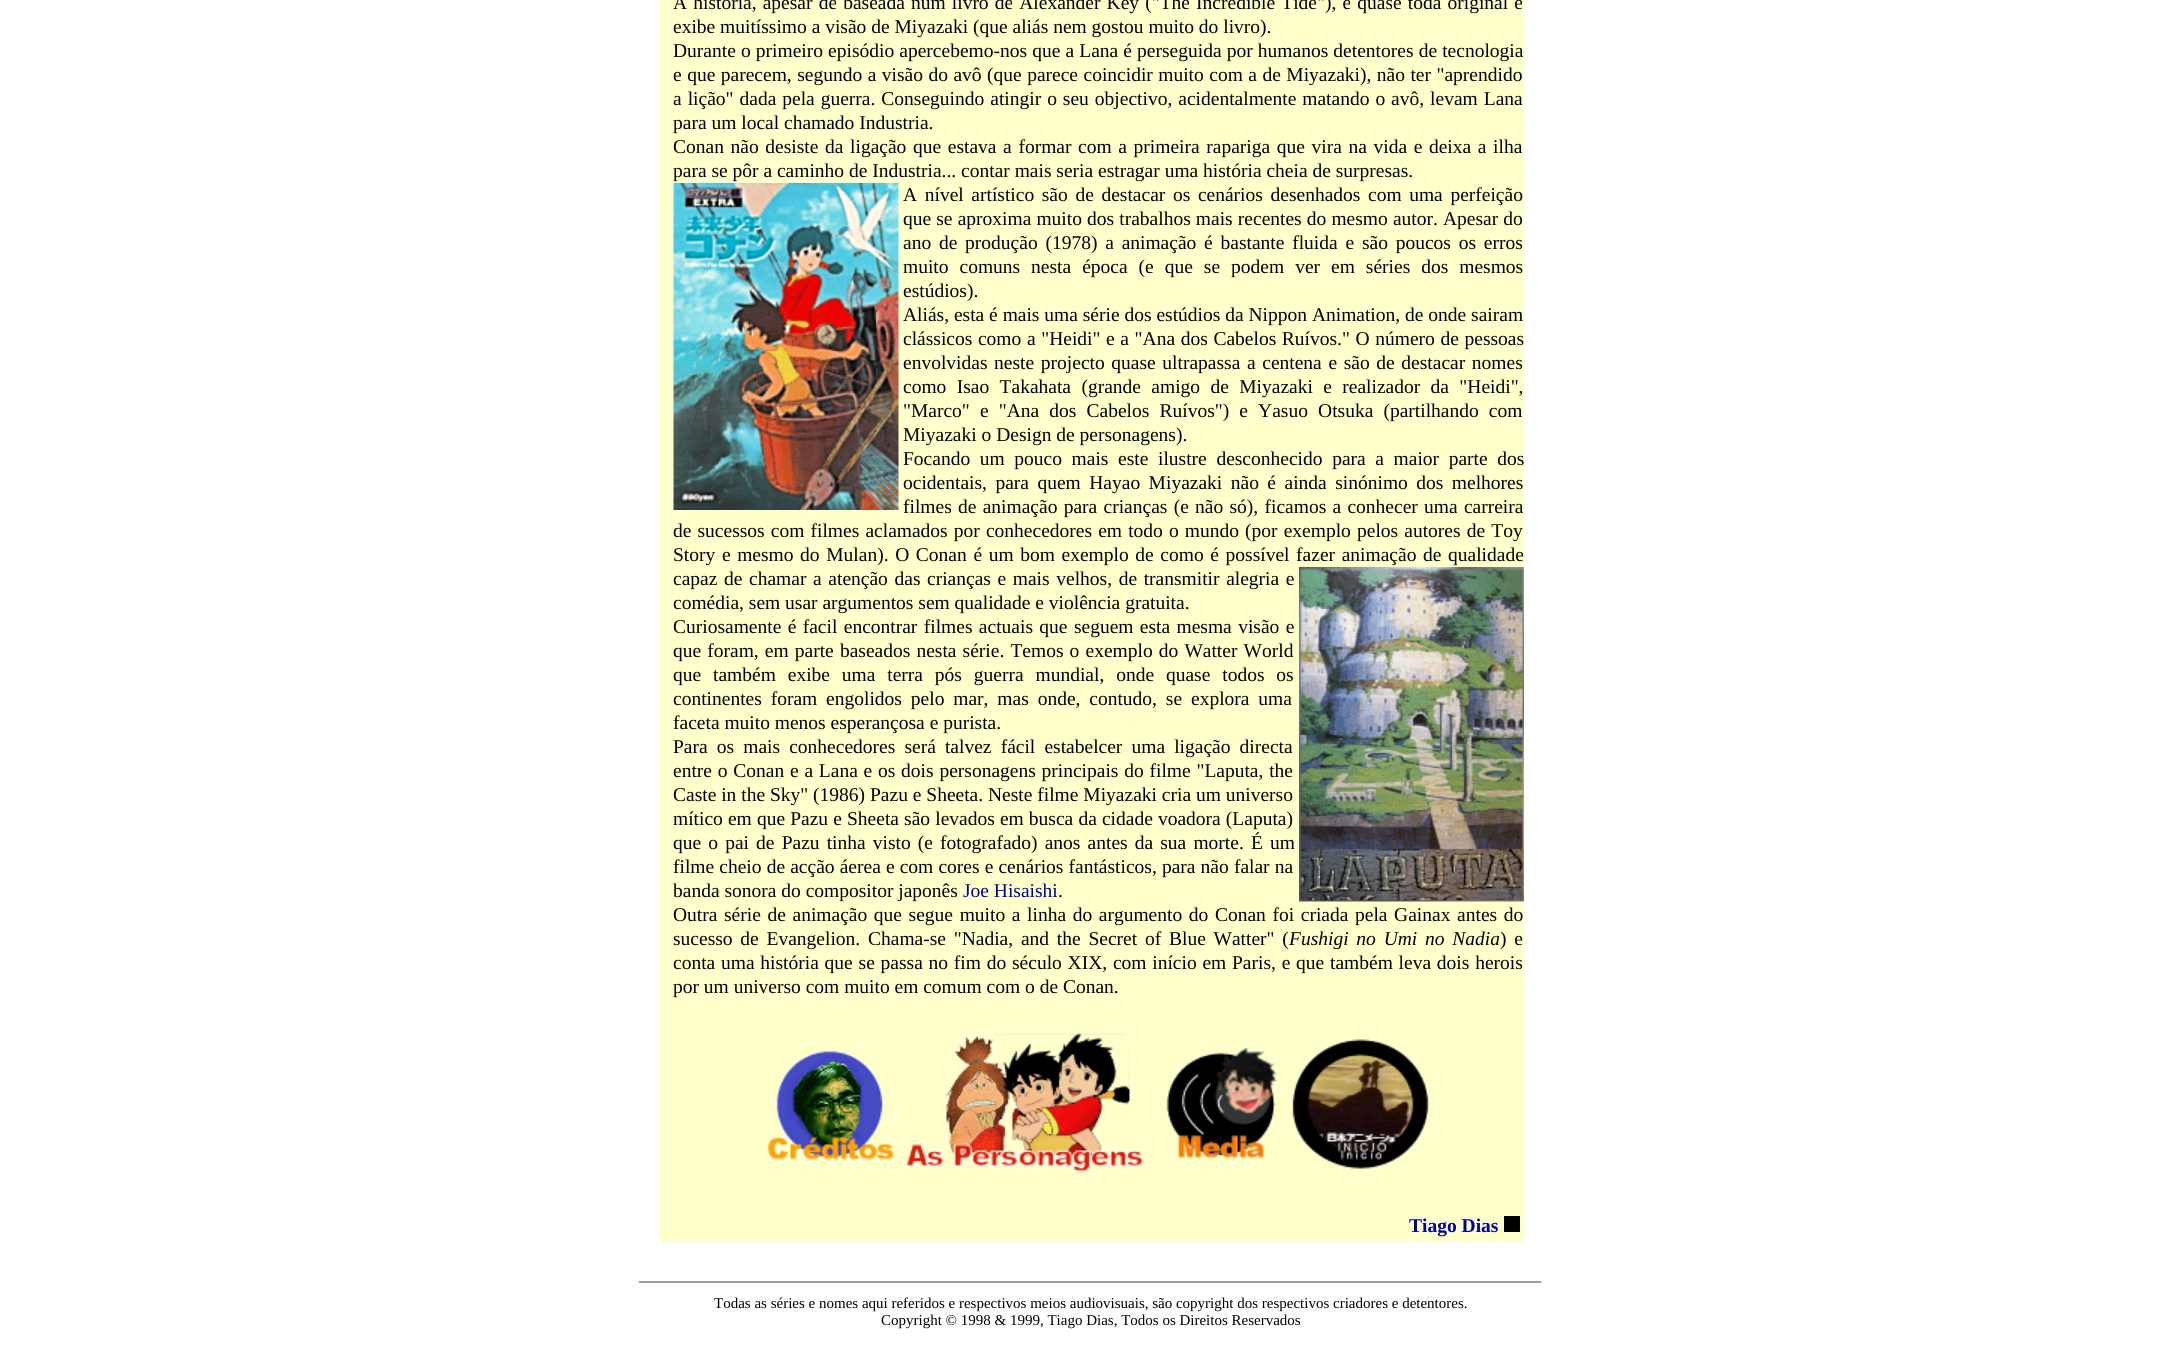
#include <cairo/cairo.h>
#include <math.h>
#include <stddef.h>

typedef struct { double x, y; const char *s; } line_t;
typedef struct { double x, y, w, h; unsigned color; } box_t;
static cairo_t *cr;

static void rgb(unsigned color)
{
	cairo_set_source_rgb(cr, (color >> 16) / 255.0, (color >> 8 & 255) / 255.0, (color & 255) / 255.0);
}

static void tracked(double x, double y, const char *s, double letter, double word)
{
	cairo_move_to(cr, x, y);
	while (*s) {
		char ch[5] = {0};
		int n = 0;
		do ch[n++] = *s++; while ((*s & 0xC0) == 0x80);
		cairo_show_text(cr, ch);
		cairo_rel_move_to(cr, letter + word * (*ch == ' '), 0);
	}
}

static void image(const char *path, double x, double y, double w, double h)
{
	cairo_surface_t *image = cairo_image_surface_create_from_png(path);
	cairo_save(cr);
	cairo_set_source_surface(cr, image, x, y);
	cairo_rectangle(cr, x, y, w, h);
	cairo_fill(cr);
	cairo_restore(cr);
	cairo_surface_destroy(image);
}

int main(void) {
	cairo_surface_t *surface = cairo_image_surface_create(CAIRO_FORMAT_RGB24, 2180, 1351);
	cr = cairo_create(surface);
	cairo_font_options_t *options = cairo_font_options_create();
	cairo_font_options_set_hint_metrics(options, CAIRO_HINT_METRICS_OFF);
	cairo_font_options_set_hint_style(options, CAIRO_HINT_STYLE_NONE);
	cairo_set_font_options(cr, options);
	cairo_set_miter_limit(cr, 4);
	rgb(0xffffff);
	cairo_paint(cr);
	rgb(0xffffcc);
	cairo_rectangle(cr, 659, 0, 865, 1242);
	cairo_fill(cr);
	image("img/1.png", 673, 183, 226, 327);
	image("img/2.png", 1299, 567, 225, 335);
	image("img/3.png", 767, 1051, 128, 109);
	image("img/4.png", 905, 1033, 240, 140);
	image("img/5.png", 1166, 1048, 111, 111);
	image("img/6.png", 1292, 1039, 137, 130);
	{
		static const box_t items[] = {
			{1504, 1216, 16, 16, 0x000000},
			{639, 1281, 903, 2, 0x9f9f9f},
			{1541, 1281, 2, 2, 0xeeeeee},
		};
		for (size_t i = 0; i < sizeof items / sizeof *items; i++) {
			rgb(items[i].color);
			cairo_rectangle(cr, items[i].x, items[i].y, items[i].w, items[i].h);
			cairo_fill(cr);
		}
	}
	cairo_select_font_face(cr, "Liberation Serif", CAIRO_FONT_SLANT_NORMAL, CAIRO_FONT_WEIGHT_NORMAL);
	cairo_set_font_size(cr, 19.5);
	rgb(0x000000);
	tracked(673, 9, "A história, apesar de baseada num livro de Alexander Key (\"The Incredible Tide\"), é quase toda original e", 0, 1.25);
	cairo_move_to(cr, 673, 33);
	cairo_show_text(cr, "exibe muitíssimo a visão de Miyazaki (que aliás nem gostou muito do livro).");
	tracked(673, 57, "Durante o primeiro episódio apercebemo-nos que a Lana é perseguida por humanos detentores de tecnologia", 0, 0.25);
	tracked(673, 81, "e que parecem, segundo a visão do avô (que parece coincidir muito com a de Miyazaki), não ter \"aprendido", 0, 0.6);
	tracked(673, 105, "a lição\" dada pela guerra. Conseguindo atingir o seu objectivo, acidentalmente matando o avô, levam Lana", 0, 1.1);
	cairo_move_to(cr, 673, 129);
	cairo_show_text(cr, "para um local chamado Industria.");
	tracked(673, 153, "Conan não desiste da ligação que estava a formar com a primeira rapariga que vira na vida e deixa a ilha", 0, 1.75);
	cairo_move_to(cr, 673, 177);
	cairo_show_text(cr, "para se pôr a caminho de Industria... contar mais seria estragar uma história cheia de surpresas.");
	tracked(903, 201, "A nível artístico são de destacar os cenários desenhados com uma perfeição", 0, 2.75);
	tracked(903, 225, "que se aproxima muito dos trabalhos mais recentes do mesmo autor. Apesar do", 0, 0.25);
	tracked(903, 249, "ano de produção (1978) a animação é bastante fluida e são poucos os erros", 0, 2.9);
	tracked(903, 273, "muito comuns nesta época (e que se podem ver em séries dos mesmos", 0, 6.1);
	cairo_move_to(cr, 903, 297);
	cairo_show_text(cr, "estúdios).");
	cairo_move_to(cr, 903, 321);
	cairo_show_text(cr, "Aliás, esta é mais uma série dos estúdios da Nippon Animation, de onde sairam");
	tracked(903, 345, "clássicos como a \"Heidi\" e a \"Ana dos Cabelos Ruívos.\" O número de pessoas", 0, 0.75);
	tracked(903, 369, "envolvidas neste projecto quase ultrapassa a centena e são de destacar nomes", 0, 1.75);
	tracked(903, 393, "como Isao Takahata (grande amigo de Miyazaki e realizador da \"Heidi\",", 0, 5.5);
	tracked(903, 417, "\"Marco\" e \"Ana dos Cabelos Ruívos\") e Yasuo Otsuka (partilhando com", 0, 5.25);
	cairo_move_to(cr, 903, 441);
	cairo_show_text(cr, "Miyazaki o Design de personagens).");
	tracked(903, 465, "Focando um pouco mais este ilustre desconhecido para a maior parte dos", 0, 4.75);
	tracked(903, 489, "ocidentais, para quem Hayao Miyazaki não é ainda sinónimo dos melhores", 0, 3.6);
	tracked(903, 513, "filmes de animação para crianças (e não só), ficamos a conhecer uma carreira", 0, 1.4);
	tracked(673, 537, "de sucessos com filmes aclamados por conhecedores em todo o mundo (por exemplo pelos autores de Toy", 0, 1.25);
	{
		static const line_t items[] = {
			{673, 561, "Story e mesmo do Mulan). O Conan é um bom exemplo de como é possível fazer animação de qualidade"},
			{673, 585, "capaz de chamar a atenção das"},
			{927, 585, "crianças e mais velhos, de transmitir alegria e"},
		};
		for (size_t i = 0; i < sizeof items / sizeof *items; i++) {
			tracked(items[i].x, items[i].y, items[i].s, 0, 1.75);
		}
	}
	cairo_move_to(cr, 673, 609);
	cairo_show_text(cr, "comédia, sem usar argumentos sem qualidade e violência gratuita.");
	tracked(673, 633, "Curiosamente é facil encontrar filmes actuais que seguem esta mesma visão e", 0, 1.5);
	tracked(673, 657, "que foram, em parte baseados nesta série. Temos o exemplo do Watter World", 0, 1.25);
	tracked(673, 681, "que também exibe uma terra pós guerra mundial, onde quase todos os", 0, 7);
	tracked(673, 705, "continentes foram engolidos pelo mar, mas onde, contudo, se explora uma", 0, 4);
	cairo_move_to(cr, 673, 729);
	cairo_show_text(cr, "faceta muito menos esperançosa e purista.");
	tracked(673, 753, "Para os mais conhecedores será talvez fácil estabelcer uma ligação directa", 0, 4.25);
	tracked(673, 777, "entre o Conan e a Lana e os dois personagens principais do filme \"Laputa, the", 0, 0.9);
	cairo_move_to(cr, 673, 801);
	cairo_show_text(cr, "Caste in the Sky\" (1986) Pazu e Sheeta. Neste filme Miyazaki cria um universo");
	tracked(673, 825, "mítico em que Pazu e Sheeta são levados em busca da cidade voadora (Laputa)", 0, 0.25);
	tracked(673, 849, "que o pai de Pazu tinha visto (e fotografado) anos antes da sua morte. É um", 0, 2.25);
	tracked(673, 873, "filme cheio de acção áerea e com cores e cenários fantásticos, para não falar na", 0, 0.25);
	cairo_move_to(cr, 673, 897);
	cairo_show_text(cr, "banda sonora do compositor japonês");
	rgb(0x0000a0);
	cairo_move_to(cr, 963, 897);
	cairo_show_text(cr, "Joe Hisaishi");
	rgb(0x000000);
	cairo_move_to(cr, 1058, 897);
	cairo_show_text(cr, ".");
	tracked(673, 921, "Outra série de animação que segue muito a linha do argumento do Conan foi criada pela Gainax antes do", 0, 1.75);
	tracked(673, 945, "sucesso de Evangelion. Chama-se \"Nadia, and the Secret of Blue Watter\" (", 0, 2.9);
	cairo_select_font_face(cr, "Liberation Serif", CAIRO_FONT_SLANT_ITALIC, CAIRO_FONT_WEIGHT_NORMAL);
	tracked(1289, 945, "Fushigi no Umi no Nadia", 0, 2.9);
	cairo_select_font_face(cr, "Liberation Serif", CAIRO_FONT_SLANT_NORMAL, CAIRO_FONT_WEIGHT_NORMAL);
	tracked(1500, 945, ") e", 0, 2.9);
	tracked(673, 969, "conta uma história que se passa no fim do século XIX, com início em Paris, e que também leva dois herois", 0, 0.9);
	cairo_move_to(cr, 673, 993);
	cairo_show_text(cr, "por um universo com muito em comum com o de Conan.");
	cairo_select_font_face(cr, "Liberation Serif", CAIRO_FONT_SLANT_NORMAL, CAIRO_FONT_WEIGHT_BOLD);
	rgb(0x0000a0);
	cairo_move_to(cr, 1409, 1232);
	cairo_show_text(cr, "Tiago Dias");
	cairo_select_font_face(cr, "Liberation Serif", CAIRO_FONT_SLANT_NORMAL, CAIRO_FONT_WEIGHT_NORMAL);
	cairo_set_font_size(cr, 15);
	rgb(0x000000);
	cairo_move_to(cr, 714, 1308);
	cairo_show_text(cr, "Todas as séries e nomes aqui referidos e respectivos meios audiovisuais, são copyright dos respectivos criadores e detentores.");
	cairo_move_to(cr, 881, 1325);
	cairo_show_text(cr, "Copyright © 1998 & 1999, Tiago Dias, Todos os Direitos Reservados");
	cairo_surface_write_to_png(surface, "page.png");
	cairo_font_options_destroy(options);
	cairo_destroy(cr);
	cairo_surface_destroy(surface);
	return 0;
}
